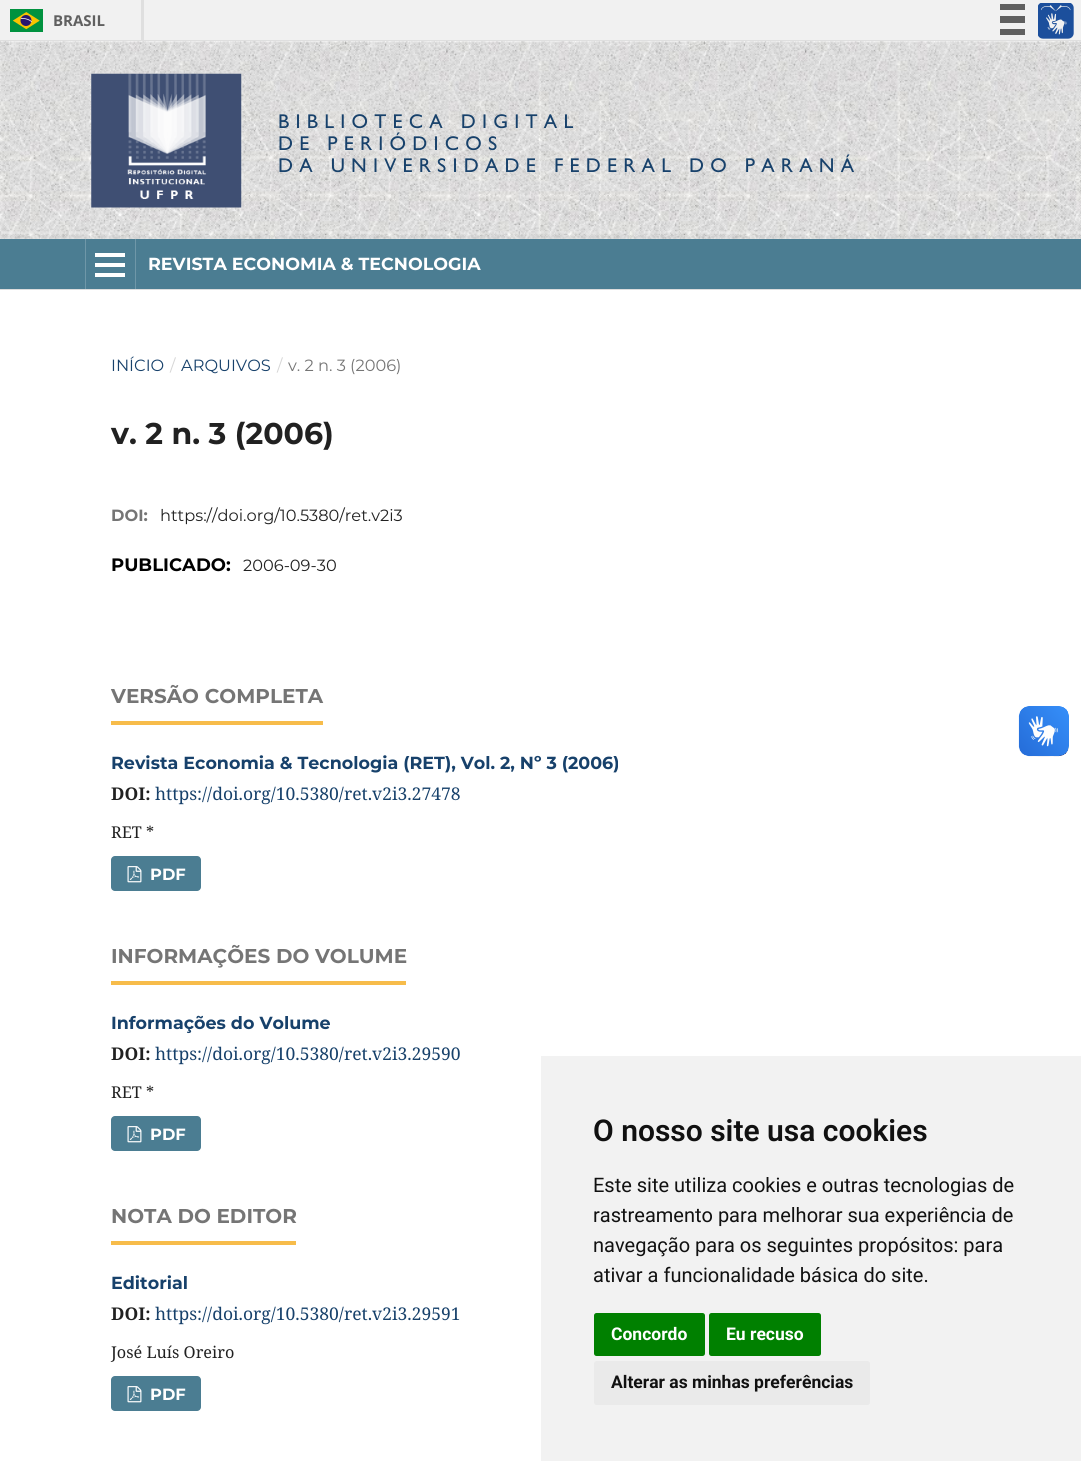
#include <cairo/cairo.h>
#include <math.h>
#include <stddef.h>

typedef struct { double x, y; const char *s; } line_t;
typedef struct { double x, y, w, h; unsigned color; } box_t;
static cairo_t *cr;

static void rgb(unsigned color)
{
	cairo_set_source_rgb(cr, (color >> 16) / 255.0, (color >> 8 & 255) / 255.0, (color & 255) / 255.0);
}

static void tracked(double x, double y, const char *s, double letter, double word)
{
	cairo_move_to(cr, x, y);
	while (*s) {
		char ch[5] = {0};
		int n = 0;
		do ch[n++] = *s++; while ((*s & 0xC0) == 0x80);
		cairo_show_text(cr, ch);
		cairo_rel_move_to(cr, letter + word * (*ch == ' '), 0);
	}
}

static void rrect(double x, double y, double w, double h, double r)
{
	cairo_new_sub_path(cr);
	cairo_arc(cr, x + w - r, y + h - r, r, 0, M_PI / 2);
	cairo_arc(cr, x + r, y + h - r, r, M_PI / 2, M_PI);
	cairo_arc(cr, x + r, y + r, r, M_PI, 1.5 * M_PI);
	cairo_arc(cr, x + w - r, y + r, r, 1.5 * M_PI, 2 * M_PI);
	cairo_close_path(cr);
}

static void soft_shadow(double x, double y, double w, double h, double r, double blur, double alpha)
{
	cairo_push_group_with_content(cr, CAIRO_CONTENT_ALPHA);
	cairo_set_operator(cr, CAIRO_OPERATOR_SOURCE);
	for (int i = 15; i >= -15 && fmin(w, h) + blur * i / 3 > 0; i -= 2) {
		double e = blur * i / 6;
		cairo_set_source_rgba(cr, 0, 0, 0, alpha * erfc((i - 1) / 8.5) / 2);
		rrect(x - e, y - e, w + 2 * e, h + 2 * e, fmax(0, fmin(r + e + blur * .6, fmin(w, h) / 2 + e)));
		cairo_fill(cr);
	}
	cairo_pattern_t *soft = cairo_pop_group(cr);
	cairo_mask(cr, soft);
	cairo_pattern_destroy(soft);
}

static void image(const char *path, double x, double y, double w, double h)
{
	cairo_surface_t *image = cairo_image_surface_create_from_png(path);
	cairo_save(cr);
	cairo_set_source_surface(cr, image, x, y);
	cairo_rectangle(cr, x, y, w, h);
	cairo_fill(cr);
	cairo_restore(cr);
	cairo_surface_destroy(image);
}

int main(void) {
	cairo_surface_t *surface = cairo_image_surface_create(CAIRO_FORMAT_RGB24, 1081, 1461);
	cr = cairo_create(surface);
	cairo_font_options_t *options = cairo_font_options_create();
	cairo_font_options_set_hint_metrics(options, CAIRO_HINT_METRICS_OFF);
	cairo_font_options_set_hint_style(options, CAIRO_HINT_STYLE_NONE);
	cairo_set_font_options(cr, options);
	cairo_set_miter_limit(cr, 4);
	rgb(0xffffff);
	cairo_paint(cr);
	{
		static const box_t items[] = {
			{0, 0, 1081, 40, 0xf1f1f1},
			{0, 40, 1081, 1, 0xdfdfdf},
			{141, 0, 3, 40, 0xdfdfdf},
		};
		for (size_t i = 0; i < sizeof items / sizeof *items; i++) {
			rgb(items[i].color);
			cairo_rectangle(cr, items[i].x, items[i].y, items[i].w, items[i].h);
			cairo_fill(cr);
		}
	}
	image("img/1.png", 10, 9, 33, 23);
	{
		static const box_t items[] = {
			{1000, 4, 25, 6, 0x606060},
			{1000, 16, 25, 7, 0x606060},
			{1000, 29, 25, 6, 0x606060},
		};
		for (size_t i = 0; i < sizeof items / sizeof *items; i++) {
			rgb(items[i].color);
			cairo_rectangle(cr, items[i].x, items[i].y, items[i].w, items[i].h);
			cairo_fill(cr);
		}
	}
	image("img/2.png", 1038, 3, 36, 36);
	image("img/3.png", 0, 41, 1081, 198);
	image("img/4.png", 91, 73, 151, 135);
	rgb(0x000000);
	soft_shadow(0, 239, 1081, 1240, 0, 6, 0.1);
	{
		static const box_t items[] = {
			{0, 290, 1081, 1171, 0xffffff},
			{0, 239, 1081, 50, 0x4b7d92},
			{0, 289, 1081, 1, 0xdddddd},
		};
		for (size_t i = 0; i < sizeof items / sizeof *items; i++) {
			rgb(items[i].color);
			cairo_rectangle(cr, items[i].x, items[i].y, items[i].w, items[i].h);
			cairo_fill(cr);
		}
	}
	rgb(0x6f97a8);
	cairo_new_path(cr);
	cairo_move_to(cr, 85, 239);
	cairo_line_to(cr, 85, 289);
	cairo_line_to(cr, 134, 289);
	cairo_line_to(cr, 86, 289);
	cairo_line_to(cr, 86, 239);
	cairo_close_path(cr);
	cairo_move_to(cr, 88, 289);
	cairo_line_to(cr, 136, 289);
	cairo_line_to(cr, 136, 239);
	cairo_line_to(cr, 135, 239);
	cairo_line_to(cr, 135, 289);
	cairo_close_path(cr);
	cairo_fill(cr);
	{
		static const box_t items[] = {
			{95, 273, 30, 4, 0xffffff},
			{95, 253, 30, 4, 0xffffff},
			{95, 263, 30, 4, 0xffffff},
			{111, 721, 212, 4, 0xf7bc4a},
		};
		for (size_t i = 0; i < sizeof items / sizeof *items; i++) {
			rgb(items[i].color);
			cairo_rectangle(cr, items[i].x, items[i].y, items[i].w, items[i].h);
			cairo_fill(cr);
		}
	}
	rgb(0x4b7d92);
	rrect(111, 856, 90, 35, 4);
	cairo_fill(cr);
	image("img/5.png", 127, 866, 15, 17);
	rgb(0xf7bc4a);
	cairo_rectangle(cr, 111, 981, 295, 4);
	cairo_fill(cr);
	rgb(0x4b7d92);
	rrect(111, 1116, 90, 35, 4);
	cairo_fill(cr);
	image("img/5.png", 127, 1126, 15, 17);
	rgb(0xf7bc4a);
	cairo_rectangle(cr, 111, 1241, 185, 4);
	cairo_fill(cr);
	rgb(0x4b7d92);
	rrect(111, 1376, 90, 35, 4);
	cairo_fill(cr);
	image("img/5.png", 127, 1386, 15, 17);
	image("img/6.png", 1018, 706, 51, 51);
	image("img/7.png", 1019, 706, 50, 50);
	rgb(0xf2f2f2);
	cairo_rectangle(cr, 541, 1056, 540, 405);
	cairo_fill(cr);
	rgb(0x008000);
	rrect(594, 1313, 111, 43, 2.5);
	cairo_fill(cr);
	rrect(709, 1313, 112, 43, 2.5);
	cairo_fill(cr);
	rgb(0xeaeaea);
	rrect(594, 1361, 276, 44, 2.5);
	cairo_fill(cr);
	cairo_select_font_face(cr, "Open Sans", CAIRO_FONT_SLANT_NORMAL, CAIRO_FONT_WEIGHT_BOLD);
	cairo_set_font_size(cr, 15);
	rgb(0x606060);
	cairo_move_to(cr, 53, 26);
	cairo_show_text(cr, "BRASIL");
	cairo_select_font_face(cr, "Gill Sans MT", CAIRO_FONT_SLANT_NORMAL, CAIRO_FONT_WEIGHT_NORMAL);
	cairo_set_font_size(cr, 20);
	rgb(0x17416b);
	{
		static const line_t items[] = {
			{278, 128, "BIBLIOTECA DIGITAL"},
			{278, 150, "DE PERIÓDICOS"},
			{278, 172, "DA UNIVERSIDADE FEDERAL DO PARANÁ"},
		};
		for (size_t i = 0; i < sizeof items / sizeof *items; i++) {
			tracked(items[i].x, items[i].y, items[i].s, 6.25, 0);
		}
	}
	cairo_select_font_face(cr, "Montserrat", CAIRO_FONT_SLANT_NORMAL, CAIRO_FONT_WEIGHT_BOLD);
	cairo_set_font_size(cr, 17.5);
	rgb(0xffffff);
	cairo_move_to(cr, 148, 270);
	cairo_show_text(cr, "REVISTA ECONOMIA & TECNOLOGIA");
	cairo_select_font_face(cr, "Montserrat", CAIRO_FONT_SLANT_NORMAL, CAIRO_FONT_WEIGHT_NORMAL);
	cairo_set_font_size(cr, 16.25);
	rgb(0x17416b);
	cairo_move_to(cr, 111, 371);
	cairo_show_text(cr, "INÍCIO");
	rgb(0xd6d6d6);
	cairo_move_to(cr, 170, 371);
	cairo_show_text(cr, "/");
	rgb(0x17416b);
	cairo_move_to(cr, 181, 371);
	cairo_show_text(cr, "ARQUIVOS");
	rgb(0xd6d6d6);
	cairo_move_to(cr, 277, 371);
	cairo_show_text(cr, "/");
	rgb(0x757575);
	cairo_move_to(cr, 288, 371);
	cairo_show_text(cr, "v. 2 n. 3 (2006)");
	cairo_select_font_face(cr, "Montserrat", CAIRO_FONT_SLANT_NORMAL, CAIRO_FONT_WEIGHT_BOLD);
	cairo_set_font_size(cr, 30);
	rgb(0x212121);
	cairo_move_to(cr, 111, 444);
	cairo_show_text(cr, "v. 2 n. 3 (2006)");
	cairo_set_font_size(cr, 16.25);
	rgb(0x757575);
	cairo_move_to(cr, 111, 521);
	cairo_show_text(cr, "DOI:");
	cairo_select_font_face(cr, "Montserrat", CAIRO_FONT_SLANT_NORMAL, CAIRO_FONT_WEIGHT_NORMAL);
	rgb(0x212121);
	cairo_move_to(cr, 160, 521);
	cairo_show_text(cr, "https://doi.org/10.5380/ret.v2i3");
	cairo_select_font_face(cr, "Montserrat", CAIRO_FONT_SLANT_NORMAL, CAIRO_FONT_WEIGHT_BOLD);
	cairo_set_font_size(cr, 18);
	rgb(0x000000);
	cairo_move_to(cr, 111, 571);
	cairo_show_text(cr, "PUBLICADO:");
	cairo_select_font_face(cr, "Montserrat", CAIRO_FONT_SLANT_NORMAL, CAIRO_FONT_WEIGHT_NORMAL);
	cairo_set_font_size(cr, 16.25);
	rgb(0x212121);
	cairo_move_to(cr, 243, 571);
	cairo_show_text(cr, "2006-09-30");
	cairo_select_font_face(cr, "Montserrat", CAIRO_FONT_SLANT_NORMAL, CAIRO_FONT_WEIGHT_BOLD);
	cairo_set_font_size(cr, 20);
	rgb(0x757575);
	cairo_move_to(cr, 111, 703);
	cairo_show_text(cr, "VERSÃO COMPLETA");
	cairo_set_font_size(cr, 17.5);
	rgb(0x17416b);
	cairo_move_to(cr, 111, 769);
	cairo_show_text(cr, "Revista Economia & Tecnologia (RET), Vol. 2, Nº 3 (2006)");
	cairo_select_font_face(cr, "Noto Serif", CAIRO_FONT_SLANT_NORMAL, CAIRO_FONT_WEIGHT_BOLD);
	rgb(0x212121);
	cairo_move_to(cr, 111, 800);
	cairo_show_text(cr, "DOI:");
	cairo_select_font_face(cr, "Noto Serif", CAIRO_FONT_SLANT_NORMAL, CAIRO_FONT_WEIGHT_NORMAL);
	rgb(0x17416b);
	cairo_move_to(cr, 155, 800);
	cairo_show_text(cr, "https://doi.org/10.5380/ret.v2i3.27478");
	cairo_set_font_size(cr, 16.25);
	rgb(0x212121);
	cairo_move_to(cr, 111, 838);
	cairo_show_text(cr, "RET *");
	cairo_select_font_face(cr, "Montserrat", CAIRO_FONT_SLANT_NORMAL, CAIRO_FONT_WEIGHT_BOLD);
	rgb(0xffffff);
	cairo_move_to(cr, 150, 880);
	cairo_show_text(cr, "PDF");
	cairo_set_font_size(cr, 20);
	rgb(0x757575);
	cairo_move_to(cr, 111, 963);
	cairo_show_text(cr, "INFORMAÇÕES DO VOLUME");
	cairo_set_font_size(cr, 17.5);
	rgb(0x17416b);
	cairo_move_to(cr, 111, 1029);
	cairo_show_text(cr, "Informações do Volume");
	cairo_select_font_face(cr, "Noto Serif", CAIRO_FONT_SLANT_NORMAL, CAIRO_FONT_WEIGHT_BOLD);
	rgb(0x212121);
	cairo_move_to(cr, 111, 1060);
	cairo_show_text(cr, "DOI:");
	cairo_select_font_face(cr, "Noto Serif", CAIRO_FONT_SLANT_NORMAL, CAIRO_FONT_WEIGHT_NORMAL);
	rgb(0x17416b);
	cairo_move_to(cr, 155, 1060);
	cairo_show_text(cr, "https://doi.org/10.5380/ret.v2i3.29590");
	cairo_set_font_size(cr, 16.25);
	rgb(0x212121);
	cairo_move_to(cr, 111, 1098);
	cairo_show_text(cr, "RET *");
	cairo_select_font_face(cr, "Montserrat", CAIRO_FONT_SLANT_NORMAL, CAIRO_FONT_WEIGHT_BOLD);
	rgb(0xffffff);
	cairo_move_to(cr, 150, 1140);
	cairo_show_text(cr, "PDF");
	cairo_set_font_size(cr, 20);
	rgb(0x757575);
	cairo_move_to(cr, 111, 1223);
	cairo_show_text(cr, "NOTA DO EDITOR");
	cairo_set_font_size(cr, 17.5);
	rgb(0x17416b);
	cairo_move_to(cr, 111, 1289);
	cairo_show_text(cr, "Editorial");
	cairo_select_font_face(cr, "Noto Serif", CAIRO_FONT_SLANT_NORMAL, CAIRO_FONT_WEIGHT_BOLD);
	rgb(0x212121);
	cairo_move_to(cr, 111, 1320);
	cairo_show_text(cr, "DOI:");
	cairo_select_font_face(cr, "Noto Serif", CAIRO_FONT_SLANT_NORMAL, CAIRO_FONT_WEIGHT_NORMAL);
	rgb(0x17416b);
	cairo_move_to(cr, 155, 1320);
	cairo_show_text(cr, "https://doi.org/10.5380/ret.v2i3.29591");
	cairo_set_font_size(cr, 16.25);
	rgb(0x212121);
	cairo_move_to(cr, 111, 1358);
	cairo_show_text(cr, "José Luís Oreiro");
	cairo_select_font_face(cr, "Montserrat", CAIRO_FONT_SLANT_NORMAL, CAIRO_FONT_WEIGHT_BOLD);
	rgb(0xffffff);
	cairo_move_to(cr, 150, 1400);
	cairo_show_text(cr, "PDF");
	cairo_select_font_face(cr, "Roboto SemiBold", CAIRO_FONT_SLANT_NORMAL, CAIRO_FONT_WEIGHT_NORMAL);
	cairo_set_font_size(cr, 30);
	rgb(0x111111);
	cairo_move_to(cr, 593, 1141);
	cairo_show_text(cr, "O nosso site usa cookies");
	cairo_select_font_face(cr, "Roboto", CAIRO_FONT_SLANT_NORMAL, CAIRO_FONT_WEIGHT_NORMAL);
	cairo_set_font_size(cr, 20);
	{
		static const line_t items[] = {
			{593, 1192, "Este site utiliza cookies e outras tecnologias de"},
			{593, 1222, "rastreamento para melhorar sua experiência de"},
			{593, 1252, "navegação para os seguintes propósitos: para"},
			{593, 1282, "ativar a funcionalidade básica do site."},
		};
		for (size_t i = 0; i < sizeof items / sizeof *items; i++) {
			cairo_move_to(cr, items[i].x, items[i].y);
			cairo_show_text(cr, items[i].s);
		}
	}
	cairo_select_font_face(cr, "Roboto", CAIRO_FONT_SLANT_NORMAL, CAIRO_FONT_WEIGHT_BOLD);
	cairo_set_font_size(cr, 17.5);
	rgb(0xffffff);
	cairo_move_to(cr, 611, 1340);
	cairo_show_text(cr, "Concordo");
	cairo_move_to(cr, 726, 1340);
	cairo_show_text(cr, "Eu recuso");
	rgb(0x111111);
	cairo_move_to(cr, 611, 1388);
	cairo_show_text(cr, "Alterar as minhas preferências");
	cairo_surface_write_to_png(surface, "page.png");
	cairo_font_options_destroy(options);
	cairo_destroy(cr);
	cairo_surface_destroy(surface);
	return 0;
}
